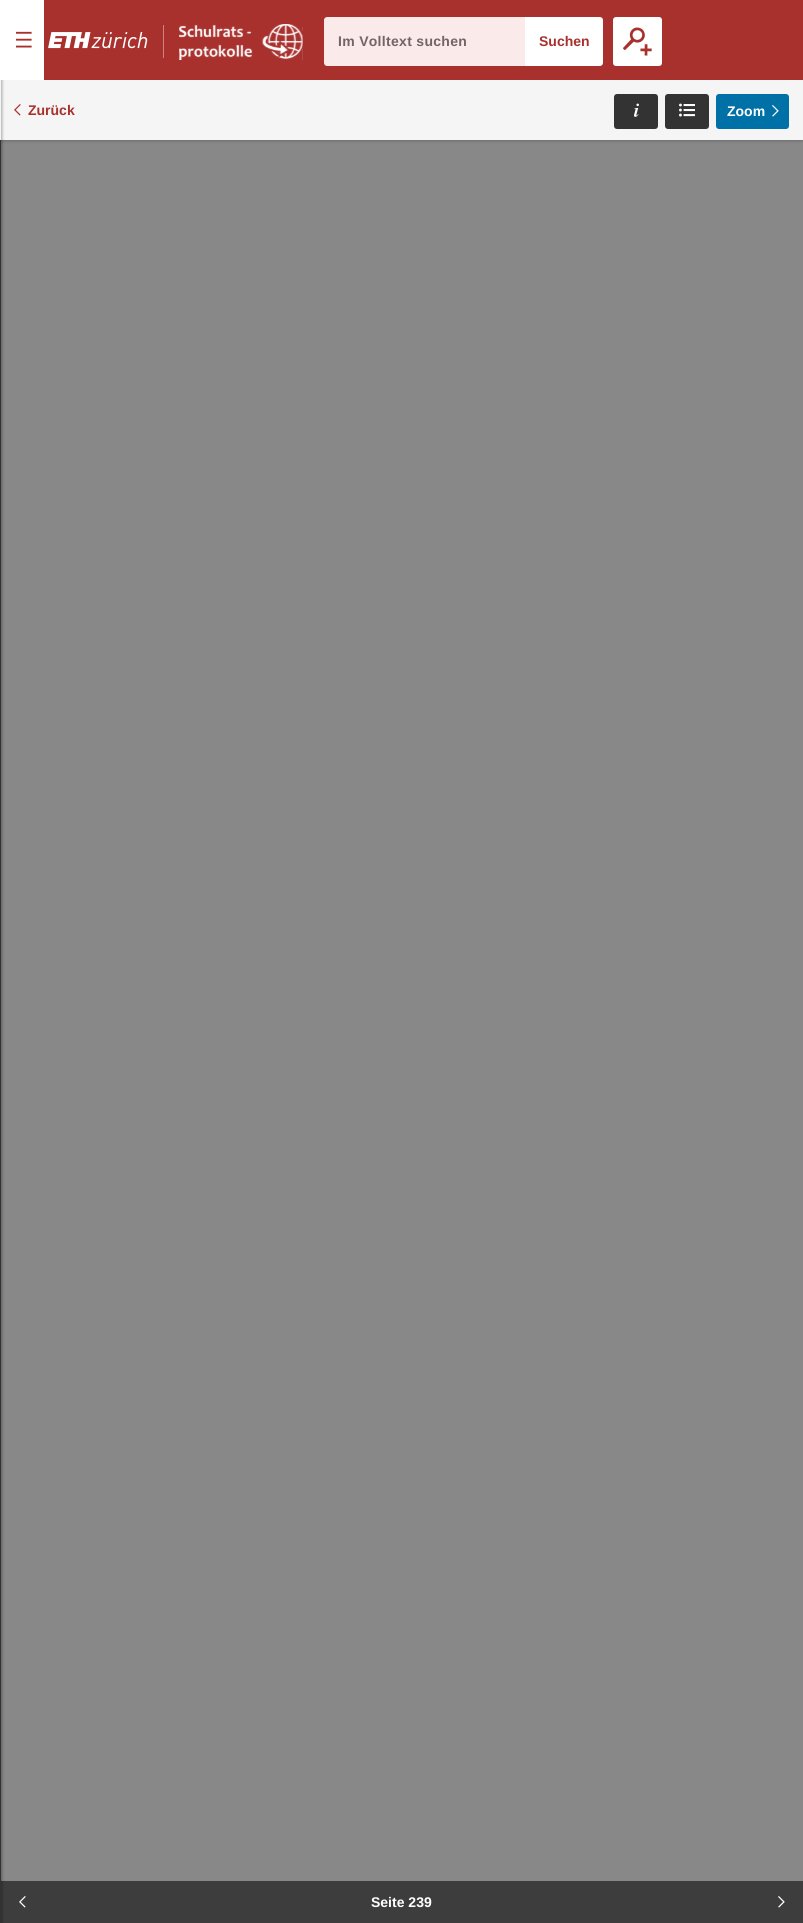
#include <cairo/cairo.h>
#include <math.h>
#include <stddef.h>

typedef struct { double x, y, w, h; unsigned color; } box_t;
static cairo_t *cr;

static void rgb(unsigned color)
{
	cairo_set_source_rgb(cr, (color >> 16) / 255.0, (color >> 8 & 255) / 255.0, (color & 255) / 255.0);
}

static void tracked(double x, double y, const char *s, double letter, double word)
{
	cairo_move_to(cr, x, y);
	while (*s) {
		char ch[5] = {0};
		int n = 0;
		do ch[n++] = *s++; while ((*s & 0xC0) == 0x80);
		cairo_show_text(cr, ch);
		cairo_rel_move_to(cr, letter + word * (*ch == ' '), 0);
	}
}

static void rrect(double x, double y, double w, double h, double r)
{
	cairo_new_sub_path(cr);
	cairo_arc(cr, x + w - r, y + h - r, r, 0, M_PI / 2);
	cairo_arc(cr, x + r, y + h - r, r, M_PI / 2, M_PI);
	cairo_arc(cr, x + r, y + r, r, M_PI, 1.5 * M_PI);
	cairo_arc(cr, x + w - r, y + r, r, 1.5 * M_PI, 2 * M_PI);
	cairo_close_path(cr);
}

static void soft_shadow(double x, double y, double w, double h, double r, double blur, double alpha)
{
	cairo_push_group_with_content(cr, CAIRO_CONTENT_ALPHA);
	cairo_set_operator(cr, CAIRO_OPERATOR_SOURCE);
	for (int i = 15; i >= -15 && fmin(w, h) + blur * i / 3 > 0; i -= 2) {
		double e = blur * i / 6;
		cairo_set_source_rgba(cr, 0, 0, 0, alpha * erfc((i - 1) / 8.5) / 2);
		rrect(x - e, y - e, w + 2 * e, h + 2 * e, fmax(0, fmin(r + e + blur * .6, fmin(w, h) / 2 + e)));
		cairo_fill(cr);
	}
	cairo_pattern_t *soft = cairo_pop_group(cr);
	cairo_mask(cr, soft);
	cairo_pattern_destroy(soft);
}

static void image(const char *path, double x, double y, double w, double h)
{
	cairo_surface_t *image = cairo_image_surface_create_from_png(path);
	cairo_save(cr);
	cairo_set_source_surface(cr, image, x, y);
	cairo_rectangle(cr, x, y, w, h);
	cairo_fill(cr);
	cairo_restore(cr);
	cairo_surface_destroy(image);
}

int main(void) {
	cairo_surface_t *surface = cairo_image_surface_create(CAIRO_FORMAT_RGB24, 803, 1923);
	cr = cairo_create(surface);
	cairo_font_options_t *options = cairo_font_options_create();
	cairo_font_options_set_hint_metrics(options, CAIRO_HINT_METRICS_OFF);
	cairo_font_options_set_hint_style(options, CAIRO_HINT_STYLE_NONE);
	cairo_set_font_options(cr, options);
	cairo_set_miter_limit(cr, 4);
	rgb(0x888888);
	cairo_paint(cr);
	rgb(0x000000);
	soft_shadow(1, 82, 801, 58, 0, 2, 0.33);
	{
		static const box_t items[] = {
			{44, 0, 759, 80, 0xa8312e},
			{1, 80, 802, 60, 0xf5f5f5},
			{1, 1881, 802, 42, 0x3d3d3d},
		};
		for (size_t i = 0; i < sizeof items / sizeof *items; i++) {
			rgb(items[i].color);
			cairo_rectangle(cr, items[i].x, items[i].y, items[i].w, items[i].h);
			cairo_fill(cr);
		}
	}
	rgb(0x000000);
	soft_shadow(-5, 4, 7, 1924, 0, 1.5, 0.33);
	rgb(0x333333);
	cairo_rectangle(cr, 0, 140, 1, 1783);
	cairo_fill(cr);
	cairo_save(cr);
	cairo_rectangle(cr, 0, 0, 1, 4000);
	cairo_clip(cr);
	rgb(0x000000);
	soft_shadow(-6, 82, 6, 58, 0, 2, 0.33);
	cairo_restore(cr);
	rgb(0xffffff);
	cairo_rectangle(cr, 0, 0, 44, 80);
	cairo_fill(cr);
	image("img/1.png", 16, 31, 16, 17);
	rgb(0xcb8382);
	cairo_rectangle(cr, 163, 25, 1, 33);
	cairo_fill(cr);
	image("img/2.png", 48, 32, 100, 17);
	image("img/3.png", 179, 24, 124, 36);
	rgb(0xfaeaea);
	cairo_new_path(cr);
	cairo_move_to(cr, 327, 17);
	cairo_line_to(cr, 525, 17);
	cairo_line_to(cr, 525, 66);
	cairo_line_to(cr, 327, 66);
	cairo_curve_to(cr, 325.5, 66, 324, 64.5, 324, 63);
	cairo_line_to(cr, 324, 20);
	cairo_curve_to(cr, 324, 18.5, 325.5, 17, 327, 17);
	cairo_close_path(cr);
	cairo_fill(cr);
	rgb(0xffffff);
	cairo_new_path(cr);
	cairo_move_to(cr, 525, 17);
	cairo_line_to(cr, 600, 17);
	cairo_curve_to(cr, 601.5, 17, 603, 18.5, 603, 20);
	cairo_line_to(cr, 603, 63);
	cairo_curve_to(cr, 603, 64.5, 601.5, 66, 600, 66);
	cairo_line_to(cr, 525, 66);
	cairo_close_path(cr);
	cairo_fill(cr);
	rrect(613, 17, 49, 49, 3);
	cairo_fill(cr);
	image("img/4.png", 623, 27, 29, 29);
	rgb(0xf5f5f5);
	cairo_rectangle(cr, 0, 80, 1, 60);
	cairo_fill(cr);
	image("img/5.png", 14, 104, 7, 12);
	rgb(0x333333);
	rrect(614, 94, 44, 35, 3);
	cairo_fill(cr);
	image("img/6.png", 634, 103, 5, 14);
	rrect(665, 94, 44, 35, 3);
	cairo_fill(cr);
	image("img/7.png", 679, 103, 16, 14);
	rgb(0x0071a6);
	rrect(716, 94, 73, 35, 3);
	cairo_fill(cr);
	image("img/8.png", 772, 105, 7, 12);
	image("img/9.png", 19, 1896, 7, 12);
	image("img/10.png", 778, 1896, 7, 12);
	cairo_select_font_face(cr, "Liberation Sans", CAIRO_FONT_SLANT_NORMAL, CAIRO_FONT_WEIGHT_BOLD);
	cairo_set_font_size(cr, 14);
	rgb(0x716565);
	tracked(338, 46, "Im Volltext suchen", 0.3, 0);
	rgb(0xa8312e);
	cairo_move_to(cr, 539, 46);
	cairo_show_text(cr, "Suchen");
	cairo_move_to(cr, 28, 115);
	cairo_show_text(cr, "Zurück");
	rgb(0xffffff);
	cairo_move_to(cr, 727, 116);
	cairo_show_text(cr, "Zoom");
	cairo_move_to(cr, 371, 1907);
	cairo_show_text(cr, "Seite 239");
	cairo_surface_write_to_png(surface, "page.png");
	cairo_font_options_destroy(options);
	cairo_destroy(cr);
	cairo_surface_destroy(surface);
	return 0;
}
